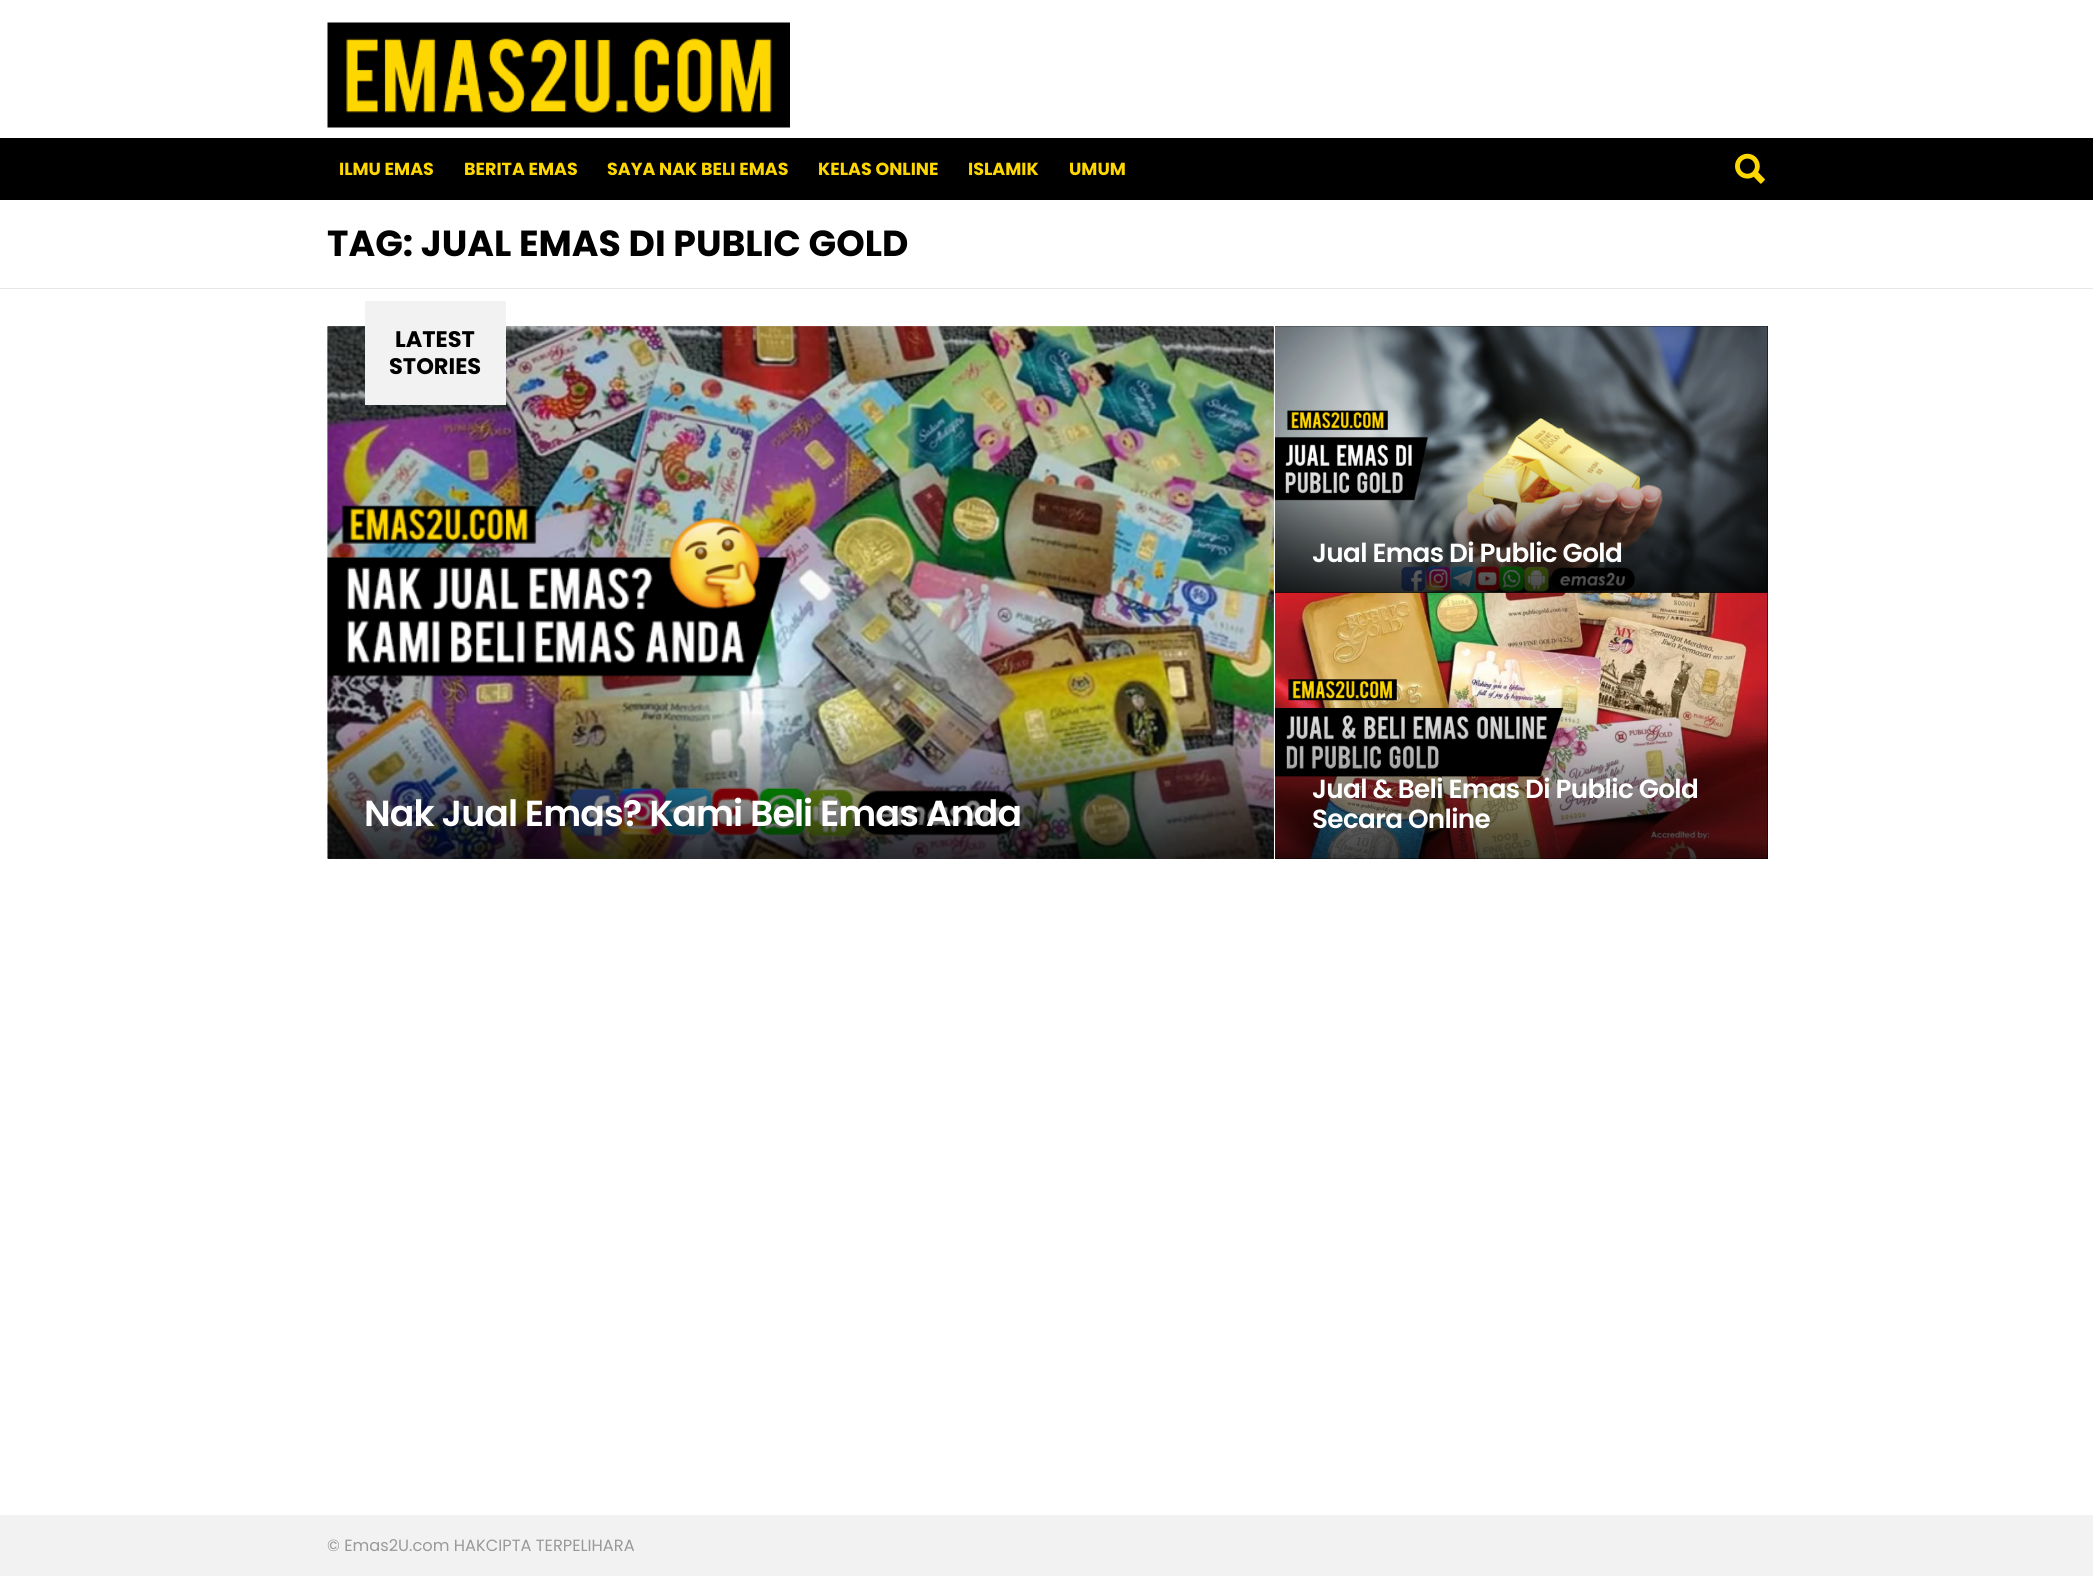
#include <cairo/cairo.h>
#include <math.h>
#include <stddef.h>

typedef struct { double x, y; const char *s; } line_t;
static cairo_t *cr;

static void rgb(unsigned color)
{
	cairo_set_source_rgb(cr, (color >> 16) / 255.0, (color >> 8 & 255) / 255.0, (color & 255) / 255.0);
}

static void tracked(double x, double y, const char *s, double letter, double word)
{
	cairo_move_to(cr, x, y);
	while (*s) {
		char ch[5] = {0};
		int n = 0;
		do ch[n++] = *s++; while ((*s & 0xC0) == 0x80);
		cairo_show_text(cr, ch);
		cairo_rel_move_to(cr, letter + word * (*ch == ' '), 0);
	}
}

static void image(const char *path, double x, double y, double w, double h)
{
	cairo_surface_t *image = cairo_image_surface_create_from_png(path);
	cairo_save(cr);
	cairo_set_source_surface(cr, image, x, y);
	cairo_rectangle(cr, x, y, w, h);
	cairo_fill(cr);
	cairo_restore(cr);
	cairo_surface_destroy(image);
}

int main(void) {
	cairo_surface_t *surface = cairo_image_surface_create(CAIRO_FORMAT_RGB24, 2093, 1576);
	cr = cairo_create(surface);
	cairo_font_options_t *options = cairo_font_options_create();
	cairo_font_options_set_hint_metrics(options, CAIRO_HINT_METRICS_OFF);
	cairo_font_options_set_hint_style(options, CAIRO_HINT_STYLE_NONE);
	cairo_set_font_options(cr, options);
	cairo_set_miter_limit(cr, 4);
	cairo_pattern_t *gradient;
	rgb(0xffffff);
	cairo_paint(cr);
	image("img/1.png", 327, 22, 463, 106);
	rgb(0x000000);
	cairo_rectangle(cr, 0, 138, 2093, 62);
	cairo_fill(cr);
	image("img/2.png", 1735, 153, 30, 31);
	rgb(0xe6e6e6);
	cairo_rectangle(cr, 0, 288, 2093, 1);
	cairo_fill(cr);
	image("img/4.png", 327, 326, 947, 533);
	image("img/5.png", 327, 326, 947, 533);
	rgb(0xf2f2f2);
	cairo_rectangle(cr, 365, 301, 141, 104);
	cairo_fill(cr);
	rgb(0x000000);
	cairo_rectangle(cr, 1275, 326, 493, 533);
	cairo_fill(cr);
	image("img/3.png", 1275, 326, 493, 267);
	image("img/6.png", 1275, 592, 493, 267);
	gradient = cairo_pattern_create_linear(1521, 454, 1521, 593);
	cairo_pattern_add_color_stop_rgba(gradient, 0, 0, 0, 0, 0);
	cairo_pattern_add_color_stop_rgba(gradient, 1, 0, 0, 0, 0.75);
	cairo_set_source(cr, gradient);
	cairo_pattern_destroy(gradient);
	cairo_rectangle(cr, 1275, 458, 493, 135);
	cairo_fill(cr);
	gradient = cairo_pattern_create_linear(801, 710, 801, 859);
	cairo_pattern_add_color_stop_rgba(gradient, 0, 0, 0, 0, 0);
	cairo_pattern_add_color_stop_rgba(gradient, 1, 0, 0, 0, 0.75);
	cairo_set_source(cr, gradient);
	cairo_pattern_destroy(gradient);
	cairo_rectangle(cr, 328, 714, 946, 145);
	cairo_fill(cr);
	gradient = cairo_pattern_create_linear(1521, 690, 1521, 859);
	cairo_pattern_add_color_stop_rgba(gradient, 0, 0, 0, 0, 0);
	cairo_pattern_add_color_stop_rgba(gradient, 1, 0, 0, 0, 0.75);
	cairo_set_source(cr, gradient);
	cairo_pattern_destroy(gradient);
	cairo_rectangle(cr, 1275, 695, 493, 164);
	cairo_fill(cr);
	rgb(0xf2f2f2);
	cairo_rectangle(cr, 0, 1515, 2093, 61);
	cairo_fill(cr);
	cairo_select_font_face(cr, "Poppins", CAIRO_FONT_SLANT_NORMAL, CAIRO_FONT_WEIGHT_BOLD);
	cairo_set_font_size(cr, 17.5);
	rgb(0xffd700);
	{
		static const line_t items[] = {
			{339, 175, "ILMU EMAS"},
			{464, 175, "BERITA EMAS"},
			{607, 175, "SAYA NAK BELI EMAS"},
			{818, 175, "KELAS ONLINE"},
			{968, 175, "ISLAMIK"},
			{1069, 175, "UMUM"},
		};
		for (size_t i = 0; i < sizeof items / sizeof *items; i++) {
			cairo_move_to(cr, items[i].x, items[i].y);
			cairo_show_text(cr, items[i].s);
		}
	}
	cairo_set_font_size(cr, 36.25);
	rgb(0x000000);
	cairo_move_to(cr, 327, 256);
	cairo_show_text(cr, "TAG: JUAL EMAS DI PUBLIC GOLD");
	cairo_set_font_size(cr, 22.5);
	cairo_move_to(cr, 395, 347);
	cairo_show_text(cr, "LATEST");
	cairo_move_to(cr, 389, 374);
	cairo_show_text(cr, "STORIES");
	cairo_select_font_face(cr, "Poppins SemiBold", CAIRO_FONT_SLANT_NORMAL, CAIRO_FONT_WEIGHT_NORMAL);
	cairo_set_font_size(cr, 26.25);
	rgb(0xffffff);
	tracked(1312, 562, "Jual Emas Di Public Gold", -0.65, 0);
	cairo_set_font_size(cr, 36.25);
	tracked(364, 826, "Nak Jual Emas? Kami Beli Emas Anda", -0.9, 0);
	cairo_set_font_size(cr, 26.25);
	tracked(1312, 798, "Jual & Beli Emas Di Public Gold", -0.65, 0);
	tracked(1312, 828, "Secara Online", -0.65, 0);
	cairo_select_font_face(cr, "Poppins", CAIRO_FONT_SLANT_NORMAL, CAIRO_FONT_WEIGHT_NORMAL);
	cairo_set_font_size(cr, 16.25);
	rgb(0x999999);
	cairo_move_to(cr, 327, 1551);
	cairo_show_text(cr, "© Emas2U.com HAKCIPTA TERPELIHARA");
	cairo_surface_write_to_png(surface, "page.png");
	cairo_font_options_destroy(options);
	cairo_destroy(cr);
	cairo_surface_destroy(surface);
	return 0;
}
